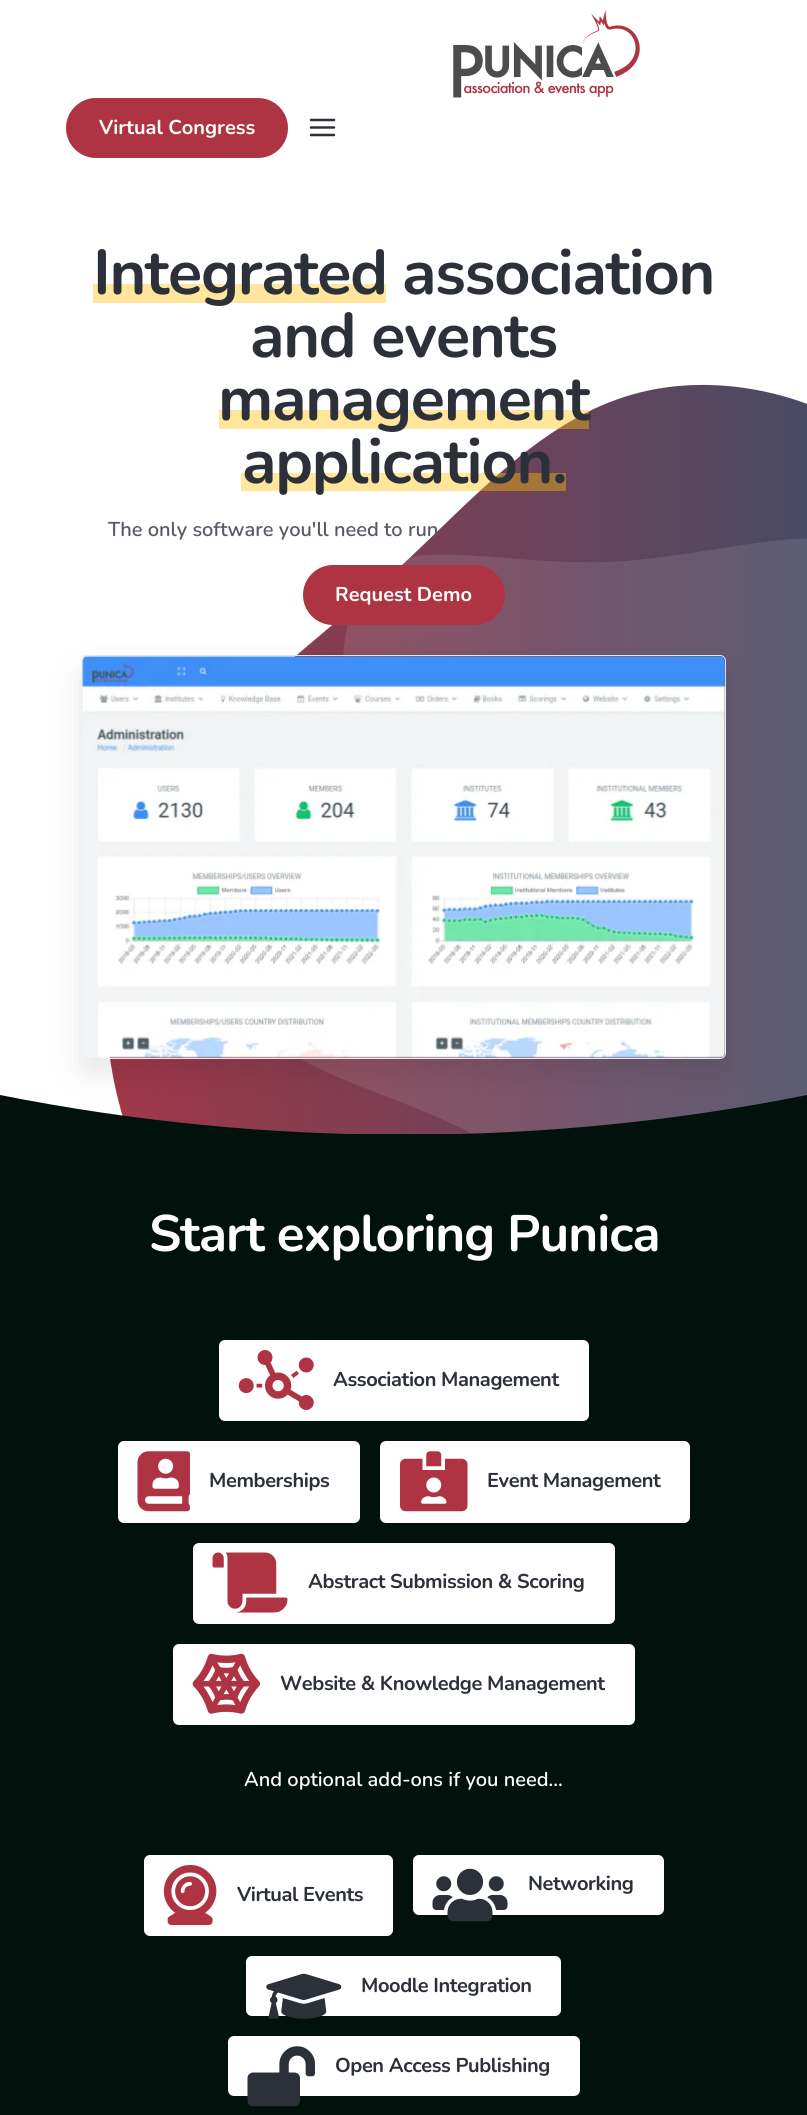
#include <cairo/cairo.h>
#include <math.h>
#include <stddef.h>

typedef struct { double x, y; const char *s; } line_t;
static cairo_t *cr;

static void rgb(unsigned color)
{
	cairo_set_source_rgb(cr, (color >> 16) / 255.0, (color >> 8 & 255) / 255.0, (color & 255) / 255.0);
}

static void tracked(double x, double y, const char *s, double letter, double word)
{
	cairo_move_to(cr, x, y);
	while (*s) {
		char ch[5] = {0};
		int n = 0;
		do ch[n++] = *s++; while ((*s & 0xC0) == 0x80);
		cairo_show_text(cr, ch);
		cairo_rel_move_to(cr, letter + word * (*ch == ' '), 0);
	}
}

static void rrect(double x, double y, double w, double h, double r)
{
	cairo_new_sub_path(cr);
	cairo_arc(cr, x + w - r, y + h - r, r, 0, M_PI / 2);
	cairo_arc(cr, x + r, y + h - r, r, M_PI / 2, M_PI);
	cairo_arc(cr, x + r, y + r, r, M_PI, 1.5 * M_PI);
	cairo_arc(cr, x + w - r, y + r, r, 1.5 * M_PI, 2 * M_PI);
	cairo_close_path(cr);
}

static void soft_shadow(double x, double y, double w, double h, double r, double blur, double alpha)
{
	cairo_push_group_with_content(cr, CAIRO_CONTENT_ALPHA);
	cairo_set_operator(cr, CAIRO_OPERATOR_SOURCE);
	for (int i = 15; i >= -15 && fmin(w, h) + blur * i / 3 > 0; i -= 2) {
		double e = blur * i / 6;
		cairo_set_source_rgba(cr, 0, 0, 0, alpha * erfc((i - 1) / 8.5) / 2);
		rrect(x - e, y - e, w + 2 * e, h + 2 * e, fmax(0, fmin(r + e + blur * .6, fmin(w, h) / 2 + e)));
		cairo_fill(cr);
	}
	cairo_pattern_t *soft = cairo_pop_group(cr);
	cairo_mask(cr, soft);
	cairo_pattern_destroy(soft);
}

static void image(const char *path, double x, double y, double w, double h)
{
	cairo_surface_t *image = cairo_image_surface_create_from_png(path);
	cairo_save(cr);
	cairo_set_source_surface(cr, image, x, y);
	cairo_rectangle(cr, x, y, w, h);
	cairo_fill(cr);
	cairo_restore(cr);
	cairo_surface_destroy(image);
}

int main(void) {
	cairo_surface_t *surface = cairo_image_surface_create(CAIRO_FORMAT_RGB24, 807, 2115);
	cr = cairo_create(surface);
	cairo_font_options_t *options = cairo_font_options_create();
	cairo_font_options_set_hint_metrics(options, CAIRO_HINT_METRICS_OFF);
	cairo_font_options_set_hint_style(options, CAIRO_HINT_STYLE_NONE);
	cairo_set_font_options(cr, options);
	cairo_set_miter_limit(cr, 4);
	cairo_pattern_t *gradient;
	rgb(0xffffff);
	cairo_paint(cr);
	image("img/1.png", 453, 10, 187, 88);
	rgb(0xae3443);
	rrect(67.5, 99.5, 219, 57, 28.5);
	cairo_fill_preserve(cr);
	cairo_set_line_width(cr, 3);
	cairo_stroke(cr);
	cairo_new_path(cr);
	cairo_move_to(cr, 311, 127.5);
	cairo_line_to(cr, 334, 127.5);
	cairo_move_to(cr, 311, 120);
	cairo_line_to(cr, 334, 120);
	cairo_move_to(cr, 311, 135);
	cairo_line_to(cr, 334, 135);
	rgb(0x2c3038);
	cairo_set_line_width(cr, 2.5);
	cairo_set_line_cap(cr, CAIRO_LINE_CAP_ROUND);
	cairo_set_line_join(cr, CAIRO_LINE_JOIN_ROUND);
	cairo_stroke(cr);
	rgb(0xffe69c);
	cairo_rectangle(cr, 93, 284, 293, 19);
	cairo_fill(cr);
	gradient = cairo_pattern_create_linear(0, 902, 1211, 902);
	cairo_pattern_add_color_stop_rgba(gradient, 0, 0.682, 0.204, 0.263, 1);
	cairo_pattern_add_color_stop_rgba(gradient, 1, 0.09, 0.337, 0.463, 1);
	cairo_set_source(cr, gradient);
	cairo_pattern_destroy(gradient);
	cairo_new_path(cr);
	cairo_move_to(cr, 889, 449);
	cairo_curve_to(cr, 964, 507, 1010, 601, 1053, 696);
	cairo_curve_to(cr, 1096, 791, 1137, 887, 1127, 977);
	cairo_curve_to(cr, 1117, 1068, 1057, 1154, 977, 1191);
	cairo_curve_to(cr, 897, 1227, 795, 1215, 702, 1255);
	cairo_curve_to(cr, 608, 1295, 522, 1387, 434, 1400);
	cairo_curve_to(cr, 346, 1413, 257, 1346, 196, 1263);
	cairo_curve_to(cr, 134, 1179, 101, 1078, 107, 984);
	cairo_curve_to(cr, 113, 891, 158, 804, 214, 738);
	cairo_curve_to(cr, 269, 671, 335, 626, 402, 565);
	cairo_curve_to(cr, 469, 503, 537, 425, 624, 397);
	cairo_curve_to(cr, 710, 369, 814, 391, 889, 449);
	cairo_close_path(cr);
	cairo_fill(cr);
	cairo_set_source_rgba(cr, 1, 0.757, 0.027, 0.4);
	cairo_rectangle(cr, 219, 410, 370, 19);
	cairo_fill(cr);
	cairo_rectangle(cr, 241, 473, 325, 18);
	cairo_fill(cr);
	cairo_set_source_rgba(cr, 1, 1, 1, 0.1);
	cairo_new_path(cr);
	cairo_move_to(cr, 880, 549);
	cairo_curve_to(cr, 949, 578, 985, 674, 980, 760);
	cairo_curve_to(cr, 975, 845, 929, 920, 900, 997);
	cairo_curve_to(cr, 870, 1074, 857, 1153, 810, 1192);
	cairo_curve_to(cr, 764, 1231, 685, 1231, 621, 1210);
	cairo_curve_to(cr, 557, 1189, 508, 1148, 437, 1117);
	cairo_curve_to(cr, 367, 1086, 276, 1064, 260, 1017);
	cairo_curve_to(cr, 245, 970, 304, 898, 326, 809);
	cairo_curve_to(cr, 347, 719, 331, 612, 371, 574);
	cairo_curve_to(cr, 412, 536, 509, 566, 608, 562);
	cairo_curve_to(cr, 708, 558, 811, 520, 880, 549);
	cairo_close_path(cr);
	cairo_fill(cr);
	rgb(0xae3443);
	rrect(304.5, 566.5, 199, 57, 28.5);
	cairo_fill_preserve(cr);
	cairo_set_line_width(cr, 3);
	cairo_set_line_cap(cr, CAIRO_LINE_CAP_BUTT);
	cairo_set_line_join(cr, CAIRO_LINE_JOIN_MITER);
	cairo_stroke(cr);
	rgb(0x00120b);
	cairo_new_path(cr);
	cairo_move_to(cr, 0, 1095);
	cairo_curve_to(cr, 266, 1148, 542, 1148, 807, 1095);
	cairo_line_to(cr, 807, 1136);
	cairo_line_to(cr, 0, 1136);
	cairo_close_path(cr);
	cairo_fill(cr);
	rgb(0x000000);
	soft_shadow(81, 670, 645, 404, 6, 15, 0.09);
	rrect(81.5, 655.5, 644, 403, 5.5);
	rgb(0xeaedf2);
	cairo_set_line_width(cr, 1);
	cairo_stroke(cr);
	image("img/2.png", 82, 655, 644, 403);
	rgb(0x00120b);
	cairo_rectangle(cr, 0, 1134, 807, 981);
	cairo_fill(cr);
	rgb(0xffffff);
	rrect(219, 1340, 370, 81, 6);
	cairo_fill(cr);
	image("img/3.png", 238, 1350, 76, 60);
	rrect(118, 1441, 242, 82, 6);
	cairo_fill(cr);
	image("img/4.png", 137, 1451, 53, 61);
	rrect(380, 1441, 310, 82, 6);
	cairo_fill(cr);
	image("img/5.png", 400, 1451, 68, 61);
	rrect(193, 1543, 422, 81, 6);
	cairo_fill(cr);
	image("img/6.png", 212, 1552, 76, 61);
	rrect(173, 1644, 462, 81, 6);
	cairo_fill(cr);
	image("img/7.png", 192, 1653, 69, 61);
	rrect(144, 1855, 249, 81, 6);
	cairo_fill(cr);
	image("img/8.png", 163, 1865, 54, 60);
	rrect(413, 1855, 251, 60, 6);
	cairo_fill(cr);
	image("img/9.png", 432, 1868, 76, 54);
	rrect(246, 1956, 315, 60, 6);
	cairo_fill(cr);
	image("img/10.png", 266, 1973, 76, 46);
	rrect(228, 2036, 352, 60, 6);
	cairo_fill(cr);
	image("img/11.png", 247, 2046, 68, 61);
	cairo_select_font_face(cr, "Nunito", CAIRO_FONT_SLANT_NORMAL, CAIRO_FONT_WEIGHT_BOLD);
	cairo_set_font_size(cr, 20);
	cairo_move_to(cr, 99, 134);
	cairo_show_text(cr, "Virtual Congress");
	cairo_set_font_size(cr, 63);
	rgb(0x2c3038);
	{
		static const line_t items[] = {
			{93, 294, "Integrated"},
			{402, 294, "association"},
			{250, 357, "and events"},
			{218, 420, "management"},
			{242, 483, "application."},
		};
		for (size_t i = 0; i < sizeof items / sizeof *items; i++) {
			tracked(items[i].x, items[i].y, items[i].s, -1.25, 0);
		}
	}
	cairo_select_font_face(cr, "Nunito SemiBold", CAIRO_FONT_SLANT_NORMAL, CAIRO_FONT_WEIGHT_NORMAL);
	cairo_set_font_size(cr, 20);
	rgb(0x555a64);
	cairo_move_to(cr, 108, 536);
	cairo_show_text(cr, "The only software you'll need to run");
	cairo_select_font_face(cr, "Nunito", CAIRO_FONT_SLANT_NORMAL, CAIRO_FONT_WEIGHT_BOLD);
	rgb(0xffffff);
	cairo_move_to(cr, 335, 601);
	cairo_show_text(cr, "Request Demo");
	cairo_set_font_size(cr, 51.25);
	tracked(149, 1251, "Start exploring Punica", -1, 0);
	cairo_set_font_size(cr, 20);
	rgb(0x2c3038);
	{
		static const line_t items[] = {
			{333, 1386, "Association Management"},
			{209, 1487, "Memberships"},
			{487, 1487, "Event Management"},
			{308, 1588, "Abstract Submission & Scoring"},
			{280, 1690, "Website & Knowledge Management"},
		};
		for (size_t i = 0; i < sizeof items / sizeof *items; i++) {
			tracked(items[i].x, items[i].y, items[i].s, -0.4, 0);
		}
	}
	cairo_select_font_face(cr, "Nunito SemiBold", CAIRO_FONT_SLANT_NORMAL, CAIRO_FONT_WEIGHT_NORMAL);
	rgb(0xffffff);
	cairo_move_to(cr, 244, 1786);
	cairo_show_text(cr, "And optional add-ons if you need...");
	cairo_select_font_face(cr, "Nunito", CAIRO_FONT_SLANT_NORMAL, CAIRO_FONT_WEIGHT_BOLD);
	rgb(0x2c3038);
	{
		static const line_t items[] = {
			{237, 1901, "Virtual Events"},
			{528, 1890, "Networking"},
			{361, 1992, "Moodle Integration"},
			{335, 2072, "Open Access Publishing"},
		};
		for (size_t i = 0; i < sizeof items / sizeof *items; i++) {
			tracked(items[i].x, items[i].y, items[i].s, -0.4, 0);
		}
	}
	cairo_surface_write_to_png(surface, "page.png");
	cairo_font_options_destroy(options);
	cairo_destroy(cr);
	cairo_surface_destroy(surface);
	return 0;
}
